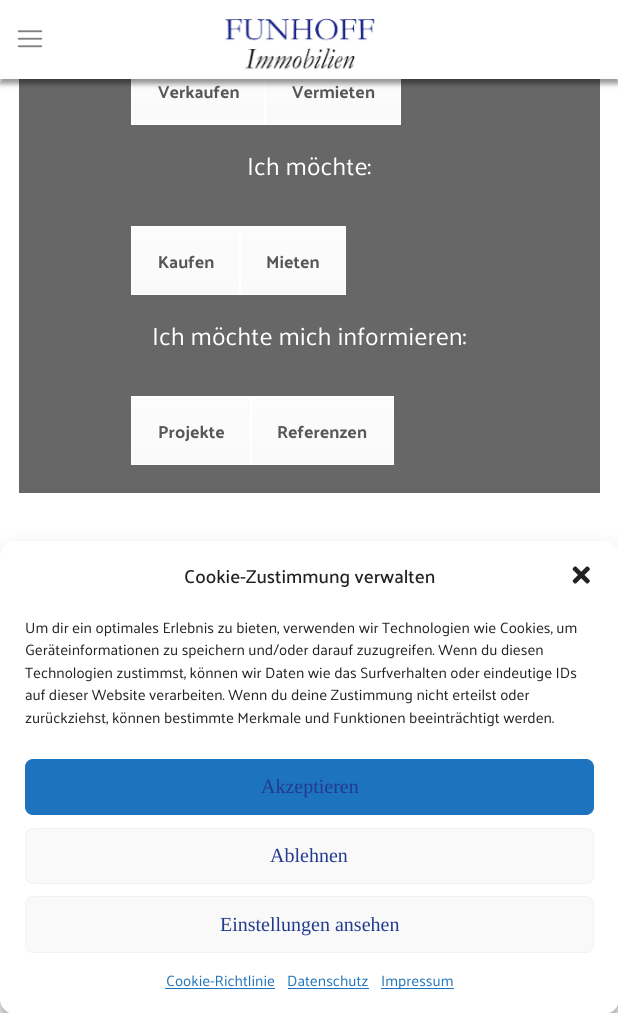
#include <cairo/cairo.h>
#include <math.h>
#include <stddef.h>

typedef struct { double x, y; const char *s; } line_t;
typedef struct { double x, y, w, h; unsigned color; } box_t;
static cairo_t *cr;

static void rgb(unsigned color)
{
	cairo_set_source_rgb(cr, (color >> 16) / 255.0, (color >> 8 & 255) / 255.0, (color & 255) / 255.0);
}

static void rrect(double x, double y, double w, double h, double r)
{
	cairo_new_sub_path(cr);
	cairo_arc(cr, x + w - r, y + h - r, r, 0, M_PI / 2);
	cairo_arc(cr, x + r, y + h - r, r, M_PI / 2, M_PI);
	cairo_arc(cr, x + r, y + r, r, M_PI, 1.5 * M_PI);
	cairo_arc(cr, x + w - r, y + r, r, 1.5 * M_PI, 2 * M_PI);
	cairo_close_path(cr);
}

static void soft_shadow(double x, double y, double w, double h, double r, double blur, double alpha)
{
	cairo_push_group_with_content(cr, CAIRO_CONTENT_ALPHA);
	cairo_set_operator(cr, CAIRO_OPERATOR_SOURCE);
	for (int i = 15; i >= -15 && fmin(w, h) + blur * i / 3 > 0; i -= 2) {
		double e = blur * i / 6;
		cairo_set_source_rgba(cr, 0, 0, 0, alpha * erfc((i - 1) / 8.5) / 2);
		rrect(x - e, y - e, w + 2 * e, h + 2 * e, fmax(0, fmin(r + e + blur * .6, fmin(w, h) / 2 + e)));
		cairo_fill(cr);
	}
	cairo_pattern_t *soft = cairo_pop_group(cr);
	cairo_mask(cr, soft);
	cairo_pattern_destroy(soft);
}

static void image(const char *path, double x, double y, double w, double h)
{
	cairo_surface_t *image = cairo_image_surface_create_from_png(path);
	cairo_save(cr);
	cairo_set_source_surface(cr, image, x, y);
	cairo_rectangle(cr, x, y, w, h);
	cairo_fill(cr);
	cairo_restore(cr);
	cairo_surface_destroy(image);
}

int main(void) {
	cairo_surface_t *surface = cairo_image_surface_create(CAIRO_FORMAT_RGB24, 618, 1013);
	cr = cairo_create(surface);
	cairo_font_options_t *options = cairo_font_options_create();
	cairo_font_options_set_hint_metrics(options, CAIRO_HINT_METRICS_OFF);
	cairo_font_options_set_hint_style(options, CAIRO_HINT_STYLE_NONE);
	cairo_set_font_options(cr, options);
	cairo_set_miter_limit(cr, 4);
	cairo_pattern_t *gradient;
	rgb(0xffffff);
	cairo_paint(cr);
	rgb(0x676767);
	cairo_rectangle(cr, 19, 79, 581, 414);
	cairo_fill(cr);
	gradient = cairo_pattern_create_linear(198, 57, 198, 124);
	cairo_pattern_add_color_stop_rgba(gradient, 0, 0.988, 0.988, 0.988, 1);
	cairo_pattern_add_color_stop_rgba(gradient, 1, 0.98, 0.98, 0.98, 1);
	cairo_set_source(cr, gradient);
	cairo_pattern_destroy(gradient);
	cairo_rectangle(cr, 132, 79, 132, 45);
	cairo_fill(cr);
	cairo_rectangle(cr, 131.5, 56.5, 133, 68);
	rgb(0xffffff);
	cairo_set_line_width(cr, 1);
	cairo_stroke(cr);
	gradient = cairo_pattern_create_linear(333, 57, 333, 124);
	cairo_pattern_add_color_stop_rgba(gradient, 0, 0.988, 0.988, 0.988, 1);
	cairo_pattern_add_color_stop_rgba(gradient, 1, 0.98, 0.98, 0.98, 1);
	cairo_set_source(cr, gradient);
	cairo_pattern_destroy(gradient);
	cairo_rectangle(cr, 266, 79, 134, 45);
	cairo_fill(cr);
	cairo_rectangle(cr, 265.5, 56.5, 135, 68);
	rgb(0xffffff);
	cairo_stroke(cr);
	rgb(0x000000);
	soft_shadow(0, 5, 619, 79, 0, 2.5, 0.4);
	rgb(0xffffff);
	cairo_rectangle(cr, 0, 0, 618, 79);
	cairo_fill(cr);
	image("img/1.png", 17, 30, 26, 18);
	image("img/2.png", 224, 18, 151, 52);
	cairo_rectangle(cr, 132, 227, 107, 1);
	cairo_fill(cr);
	gradient = cairo_pattern_create_linear(186, 228, 186, 294);
	cairo_pattern_add_color_stop_rgba(gradient, 0, 0.988, 0.988, 0.988, 1);
	cairo_pattern_add_color_stop_rgba(gradient, 1, 0.98, 0.98, 0.98, 1);
	cairo_set_source(cr, gradient);
	cairo_pattern_destroy(gradient);
	cairo_rectangle(cr, 132, 228, 107, 66);
	cairo_fill(cr);
	cairo_rectangle(cr, 131.5, 226.5, 108, 68);
	rgb(0xffffff);
	cairo_stroke(cr);
	cairo_rectangle(cr, 241, 227, 104, 1);
	cairo_fill(cr);
	gradient = cairo_pattern_create_linear(293, 228, 293, 294);
	cairo_pattern_add_color_stop_rgba(gradient, 0, 0.988, 0.988, 0.988, 1);
	cairo_pattern_add_color_stop_rgba(gradient, 1, 0.98, 0.98, 0.98, 1);
	cairo_set_source(cr, gradient);
	cairo_pattern_destroy(gradient);
	cairo_rectangle(cr, 241, 228, 104, 66);
	cairo_fill(cr);
	cairo_rectangle(cr, 240.5, 226.5, 105, 68);
	rgb(0xffffff);
	cairo_stroke(cr);
	cairo_rectangle(cr, 132, 397, 118, 1);
	cairo_fill(cr);
	gradient = cairo_pattern_create_linear(191, 398, 191, 464);
	cairo_pattern_add_color_stop_rgba(gradient, 0, 0.988, 0.988, 0.988, 1);
	cairo_pattern_add_color_stop_rgba(gradient, 1, 0.98, 0.98, 0.98, 1);
	cairo_set_source(cr, gradient);
	cairo_pattern_destroy(gradient);
	cairo_rectangle(cr, 132, 398, 118, 66);
	cairo_fill(cr);
	cairo_rectangle(cr, 131.5, 396.5, 119, 68);
	rgb(0xffffff);
	cairo_stroke(cr);
	cairo_rectangle(cr, 252, 397, 141, 1);
	cairo_fill(cr);
	gradient = cairo_pattern_create_linear(323, 398, 323, 464);
	cairo_pattern_add_color_stop_rgba(gradient, 0, 0.988, 0.988, 0.988, 1);
	cairo_pattern_add_color_stop_rgba(gradient, 1, 0.98, 0.98, 0.98, 1);
	cairo_set_source(cr, gradient);
	cairo_pattern_destroy(gradient);
	cairo_rectangle(cr, 252, 398, 141, 66);
	cairo_fill(cr);
	cairo_rectangle(cr, 251.5, 396.5, 142, 68);
	rgb(0xffffff);
	cairo_stroke(cr);
	rgb(0x000000);
	soft_shadow(0, 549, 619, 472, 15, 4, 0.23);
	soft_shadow(0, 554, 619, 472, 15, 12.5, 0.19);
	rgb(0xffffff);
	rrect(0, 541, 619, 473, 15);
	cairo_fill(cr);
	image("img/3.png", 572, 566, 18, 18);
	rgb(0x1e73be);
	rrect(25.5, 759.5, 568, 55, 7.5);
	cairo_fill_preserve(cr);
	cairo_stroke(cr);
	rgb(0xf9f9f9);
	rrect(25.5, 828.5, 568, 55, 7.5);
	cairo_fill_preserve(cr);
	rgb(0xf2f2f2);
	cairo_stroke(cr);
	rgb(0xf9f9f9);
	rrect(25.5, 896.5, 568, 56, 7.5);
	cairo_fill_preserve(cr);
	rgb(0xf2f2f2);
	cairo_stroke(cr);
	{
		static const box_t items[] = {
			{165, 988, 110, 1, 0x1e73be},
			{288, 988, 81, 1, 0x1e73be},
			{381, 988, 73, 1, 0x1e73be},
		};
		for (size_t i = 0; i < sizeof items / sizeof *items; i++) {
			rgb(items[i].color);
			cairo_rectangle(cr, items[i].x, items[i].y, items[i].w, items[i].h);
			cairo_fill(cr);
		}
	}
	cairo_select_font_face(cr, "Palanquin", CAIRO_FONT_SLANT_NORMAL, CAIRO_FONT_WEIGHT_BOLD);
	cairo_set_font_size(cr, 17.5);
	rgb(0x575756);
	cairo_move_to(cr, 158, 98);
	cairo_show_text(cr, "Verkaufen");
	cairo_move_to(cr, 292, 98);
	cairo_show_text(cr, "Vermieten");
	cairo_select_font_face(cr, "Palanquin", CAIRO_FONT_SLANT_NORMAL, CAIRO_FONT_WEIGHT_NORMAL);
	cairo_set_font_size(cr, 25);
	rgb(0xffffff);
	cairo_move_to(cr, 247, 175);
	cairo_show_text(cr, "Ich möchte:");
	cairo_select_font_face(cr, "Palanquin", CAIRO_FONT_SLANT_NORMAL, CAIRO_FONT_WEIGHT_BOLD);
	cairo_set_font_size(cr, 17.5);
	rgb(0x575756);
	cairo_move_to(cr, 158, 268);
	cairo_show_text(cr, "Kaufen");
	cairo_move_to(cr, 266, 268);
	cairo_show_text(cr, "Mieten");
	cairo_select_font_face(cr, "Palanquin", CAIRO_FONT_SLANT_NORMAL, CAIRO_FONT_WEIGHT_NORMAL);
	cairo_set_font_size(cr, 25);
	rgb(0xffffff);
	cairo_move_to(cr, 152, 345);
	cairo_show_text(cr, "Ich möchte mich informieren:");
	cairo_select_font_face(cr, "Palanquin", CAIRO_FONT_SLANT_NORMAL, CAIRO_FONT_WEIGHT_BOLD);
	cairo_set_font_size(cr, 17.5);
	rgb(0x575756);
	cairo_move_to(cr, 158, 438);
	cairo_show_text(cr, "Projekte");
	cairo_move_to(cr, 277, 438);
	cairo_show_text(cr, "Referenzen");
	cairo_select_font_face(cr, "Palanquin Medium", CAIRO_FONT_SLANT_NORMAL, CAIRO_FONT_WEIGHT_NORMAL);
	cairo_set_font_size(cr, 18.75);
	rgb(0x222222);
	cairo_move_to(cr, 184, 583);
	cairo_show_text(cr, "Cookie-Zustimmung verwalten");
	cairo_select_font_face(cr, "Palanquin", CAIRO_FONT_SLANT_NORMAL, CAIRO_FONT_WEIGHT_NORMAL);
	cairo_set_font_size(cr, 15);
	{
		static const line_t items[] = {
			{25, 633, "Um dir ein optimales Erlebnis zu bieten, verwenden wir Technologien wie Cookies, um"},
			{25, 655, "Geräteinformationen zu speichern und/oder darauf zuzugreifen. Wenn du diesen"},
			{25, 678, "Technologien zustimmst, können wir Daten wie das Surfverhalten oder eindeutige IDs"},
			{25, 700, "auf dieser Website verarbeiten. Wenn du deine Zustimmung nicht erteilst oder"},
			{25, 723, "zurückziehst, können bestimmte Merkmale und Funktionen beeinträchtigt werden."},
		};
		for (size_t i = 0; i < sizeof items / sizeof *items; i++) {
			cairo_move_to(cr, items[i].x, items[i].y);
			cairo_show_text(cr, items[i].s);
		}
	}
	cairo_select_font_face(cr, "Liberation Serif", CAIRO_FONT_SLANT_NORMAL, CAIRO_FONT_WEIGHT_NORMAL);
	cairo_set_font_size(cr, 20);
	rgb(0x213a8f);
	{
		static const line_t items[] = {
			{261, 793, "Akzeptieren"},
			{270, 862, "Ablehnen"},
			{220, 931, "Einstellungen ansehen"},
		};
		for (size_t i = 0; i < sizeof items / sizeof *items; i++) {
			cairo_move_to(cr, items[i].x, items[i].y);
			cairo_show_text(cr, items[i].s);
		}
	}
	cairo_select_font_face(cr, "Palanquin", CAIRO_FONT_SLANT_NORMAL, CAIRO_FONT_WEIGHT_NORMAL);
	cairo_set_font_size(cr, 15);
	rgb(0x1e73be);
	{
		static const line_t items[] = {
			{166, 986, "Cookie-Richtlinie"},
			{287, 986, "Datenschutz"},
			{381, 986, "Impressum"},
		};
		for (size_t i = 0; i < sizeof items / sizeof *items; i++) {
			cairo_move_to(cr, items[i].x, items[i].y);
			cairo_show_text(cr, items[i].s);
		}
	}
	cairo_surface_write_to_png(surface, "page.png");
	cairo_font_options_destroy(options);
	cairo_destroy(cr);
	cairo_surface_destroy(surface);
	return 0;
}
